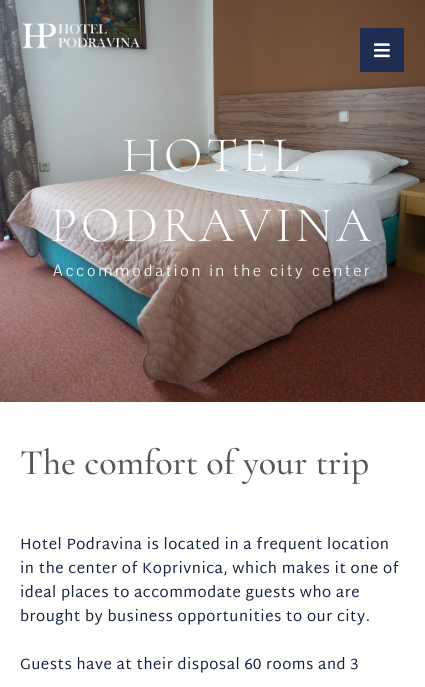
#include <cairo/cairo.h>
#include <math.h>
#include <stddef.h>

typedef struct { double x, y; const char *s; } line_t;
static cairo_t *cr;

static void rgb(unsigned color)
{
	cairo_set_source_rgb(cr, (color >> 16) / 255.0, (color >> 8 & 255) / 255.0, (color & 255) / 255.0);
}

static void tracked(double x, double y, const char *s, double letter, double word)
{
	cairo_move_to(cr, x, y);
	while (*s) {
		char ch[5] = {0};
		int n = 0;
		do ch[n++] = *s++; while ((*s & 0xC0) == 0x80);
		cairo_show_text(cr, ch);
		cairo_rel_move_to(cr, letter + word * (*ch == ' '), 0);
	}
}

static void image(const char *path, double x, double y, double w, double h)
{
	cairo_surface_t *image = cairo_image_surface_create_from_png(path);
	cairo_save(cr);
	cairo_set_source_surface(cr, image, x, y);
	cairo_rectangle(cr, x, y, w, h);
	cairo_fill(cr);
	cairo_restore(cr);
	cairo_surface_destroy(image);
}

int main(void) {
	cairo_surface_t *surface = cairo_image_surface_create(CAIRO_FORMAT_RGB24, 425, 687);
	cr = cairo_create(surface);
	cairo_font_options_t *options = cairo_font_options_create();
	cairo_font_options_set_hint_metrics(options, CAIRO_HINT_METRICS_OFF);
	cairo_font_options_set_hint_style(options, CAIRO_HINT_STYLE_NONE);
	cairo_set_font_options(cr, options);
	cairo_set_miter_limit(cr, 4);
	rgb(0xffffff);
	cairo_paint(cr);
	image("img/3.png", 0, 0, 425, 402);
	image("img/1.png", 22, 23, 118, 26);
	rgb(0x1f2d52);
	cairo_rectangle(cr, 360, 28, 44, 44);
	cairo_fill(cr);
	image("img/2.png", 374, 43, 16, 15);
	cairo_select_font_face(cr, "Cormorant Light", CAIRO_FONT_SLANT_NORMAL, CAIRO_FONT_WEIGHT_NORMAL);
	cairo_set_font_size(cr, 50);
	rgb(0xffffff);
	tracked(122, 171, "HOTEL", 4, 0);
	tracked(50, 241, "PODRAVINA", 4, 0);
	cairo_select_font_face(cr, "Pontano Sans Light", CAIRO_FONT_SLANT_NORMAL, CAIRO_FONT_WEIGHT_NORMAL);
	cairo_set_font_size(cr, 16);
	tracked(53, 276, "Accommodation in the city center", 3, 0);
	cairo_select_font_face(cr, "Cormorant Garamond Medium", CAIRO_FONT_SLANT_NORMAL, CAIRO_FONT_WEIGHT_NORMAL);
	cairo_set_font_size(cr, 36);
	rgb(0x565656);
	cairo_move_to(cr, 20, 474);
	cairo_show_text(cr, "The comfort of your trip");
	cairo_select_font_face(cr, "Martel Sans", CAIRO_FONT_SLANT_NORMAL, CAIRO_FONT_WEIGHT_NORMAL);
	cairo_set_font_size(cr, 15);
	rgb(0x172240);
	{
		static const line_t items[] = {
			{20, 549, "Hotel Podravina is located in a frequent location"},
			{20, 573, "in the center of Koprivnica, which makes it one of"},
			{20, 597, "ideal places to accommodate guests who are"},
			{20, 621, "brought by business opportunities to our city."},
			{20, 669, "Guests have at their disposal 60 rooms and 3"},
		};
		for (size_t i = 0; i < sizeof items / sizeof *items; i++) {
			tracked(items[i].x, items[i].y, items[i].s, 0.5, 0);
		}
	}
	cairo_surface_write_to_png(surface, "page.png");
	cairo_font_options_destroy(options);
	cairo_destroy(cr);
	cairo_surface_destroy(surface);
	return 0;
}
